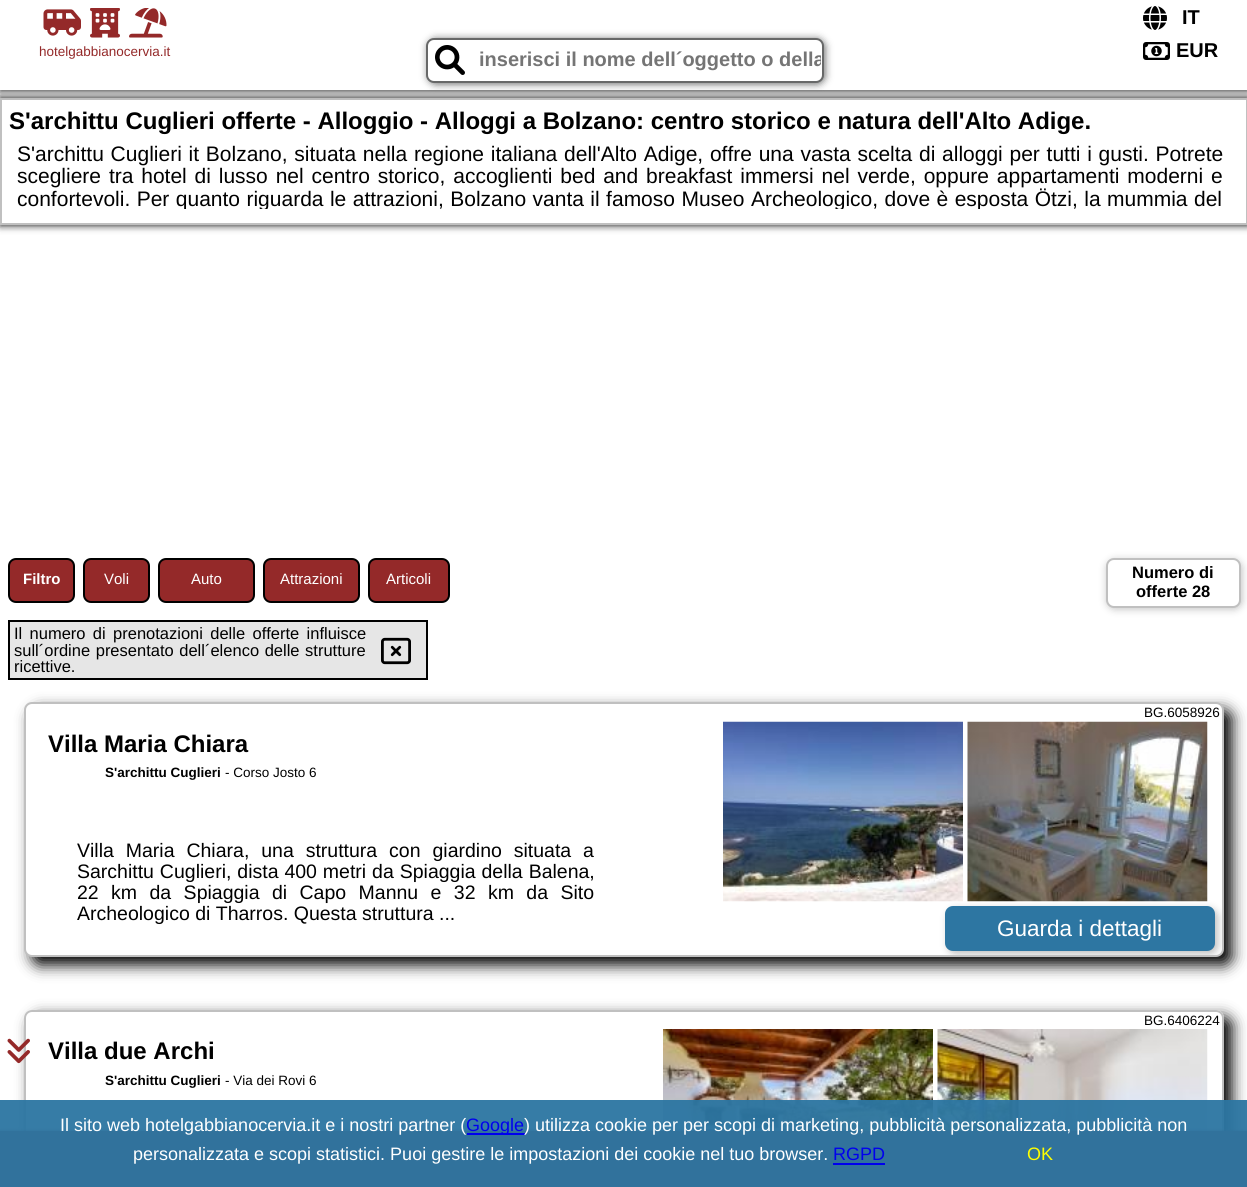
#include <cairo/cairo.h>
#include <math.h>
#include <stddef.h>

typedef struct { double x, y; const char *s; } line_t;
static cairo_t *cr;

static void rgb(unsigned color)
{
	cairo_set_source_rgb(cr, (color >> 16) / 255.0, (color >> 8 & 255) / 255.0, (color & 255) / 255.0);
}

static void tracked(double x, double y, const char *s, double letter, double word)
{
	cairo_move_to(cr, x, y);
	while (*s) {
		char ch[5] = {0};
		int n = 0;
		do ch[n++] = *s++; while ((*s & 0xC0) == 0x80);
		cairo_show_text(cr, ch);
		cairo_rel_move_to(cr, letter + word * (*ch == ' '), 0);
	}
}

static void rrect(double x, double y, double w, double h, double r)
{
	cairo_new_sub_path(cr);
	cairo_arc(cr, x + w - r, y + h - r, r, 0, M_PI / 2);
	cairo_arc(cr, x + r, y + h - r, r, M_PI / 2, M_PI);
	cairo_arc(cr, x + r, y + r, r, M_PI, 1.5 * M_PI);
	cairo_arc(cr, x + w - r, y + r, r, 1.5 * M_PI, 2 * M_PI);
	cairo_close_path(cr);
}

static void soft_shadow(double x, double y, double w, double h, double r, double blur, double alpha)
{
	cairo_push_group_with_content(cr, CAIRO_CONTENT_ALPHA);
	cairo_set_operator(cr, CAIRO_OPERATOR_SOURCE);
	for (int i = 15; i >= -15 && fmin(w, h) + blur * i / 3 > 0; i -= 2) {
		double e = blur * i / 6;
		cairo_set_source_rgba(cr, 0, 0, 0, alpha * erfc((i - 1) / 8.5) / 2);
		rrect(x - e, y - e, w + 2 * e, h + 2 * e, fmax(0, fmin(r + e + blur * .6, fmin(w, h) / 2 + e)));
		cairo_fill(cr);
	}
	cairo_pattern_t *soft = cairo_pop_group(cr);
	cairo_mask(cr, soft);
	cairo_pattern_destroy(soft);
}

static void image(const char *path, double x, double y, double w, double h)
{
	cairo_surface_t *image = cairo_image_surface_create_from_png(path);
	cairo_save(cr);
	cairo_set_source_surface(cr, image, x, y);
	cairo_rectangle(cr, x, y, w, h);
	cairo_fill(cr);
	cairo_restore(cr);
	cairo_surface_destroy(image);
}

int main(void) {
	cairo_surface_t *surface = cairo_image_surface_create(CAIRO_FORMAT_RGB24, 1247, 1187);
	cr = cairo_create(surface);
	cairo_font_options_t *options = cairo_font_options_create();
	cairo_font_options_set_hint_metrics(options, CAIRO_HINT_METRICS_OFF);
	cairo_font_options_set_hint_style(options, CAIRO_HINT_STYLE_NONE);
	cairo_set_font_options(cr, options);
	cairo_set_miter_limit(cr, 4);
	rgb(0xffffff);
	cairo_paint(cr);
	cairo_save(cr);
	cairo_set_fill_rule(cr, CAIRO_FILL_RULE_EVEN_ODD);
	cairo_new_path(cr);
	cairo_move_to(cr, 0, 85);
	cairo_line_to(cr, 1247, 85);
	cairo_line_to(cr, 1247, 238);
	cairo_line_to(cr, 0, 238);
	cairo_close_path(cr);
	cairo_move_to(cr, 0, 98);
	cairo_line_to(cr, 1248, 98);
	cairo_line_to(cr, 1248, 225);
	cairo_line_to(cr, 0, 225);
	cairo_close_path(cr);
	cairo_clip(cr);
	rgb(0x000000);
	soft_shadow(0, 98, 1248, 127, 0, 4, 1);
	cairo_restore(cr);
	cairo_rectangle(cr, 1, 99, 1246, 125);
	rgb(0xc0c0c0);
	cairo_stroke(cr);
	rgb(0x000000);
	soft_shadow(0, 0, 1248, 90, 0, 4, 1);
	rgb(0xffffff);
	cairo_rectangle(cr, 0, 0, 1247, 90);
	cairo_fill(cr);
	image("img/1.png", 1143, 6, 24, 24);
	image("img/2.png", 43, 9, 38, 27);
	image("img/3.png", 90, 8, 30, 30);
	image("img/4.png", 129, 8, 38, 30);
	rgb(0x676868);
	soft_shadow(428, 39, 397, 45, 8, 4, 1);
	rgb(0xffffff);
	rrect(427, 39, 396, 43, 7);
	cairo_fill_preserve(cr);
	rgb(0x676868);
	cairo_stroke(cr);
	image("img/5.png", 435, 45, 30, 30);
	image("img/6.png", 1143, 42, 27, 18);
	rgb(0x942929);
	rrect(9, 559, 65, 43, 7);
	cairo_fill_preserve(cr);
	rgb(0x000000);
	cairo_stroke(cr);
	rgb(0x942929);
	rrect(84, 559, 65, 43, 7);
	cairo_fill_preserve(cr);
	rgb(0x000000);
	cairo_stroke(cr);
	rgb(0x942929);
	rrect(159, 559, 95, 43, 7);
	cairo_fill_preserve(cr);
	rgb(0x000000);
	cairo_stroke(cr);
	rgb(0x942929);
	rrect(264, 559, 95, 43, 7);
	cairo_fill_preserve(cr);
	rgb(0x000000);
	cairo_stroke(cr);
	rgb(0x942929);
	rrect(369, 559, 80, 43, 7);
	cairo_fill_preserve(cr);
	rgb(0x000000);
	cairo_stroke(cr);
	rgb(0xc0c0c0);
	soft_shadow(1107, 560, 135, 49, 8, 4, 1);
	rgb(0xffffff);
	rrect(1107, 559, 133, 48, 7);
	cairo_fill_preserve(cr);
	rgb(0xc0c0c0);
	cairo_stroke(cr);
	rgb(0xe6e6e6);
	cairo_rectangle(cr, 9, 621, 418, 58);
	cairo_fill_preserve(cr);
	rgb(0x000000);
	cairo_stroke(cr);
	image("img/7.png", 381, 637, 30, 28);
	rgb(0x000000);
	soft_shadow(32, 710, 1200, 255, 8, 7.5, 1);
	rgb(0xffffff);
	rrect(25, 703, 1198, 253, 7);
	cairo_fill_preserve(cr);
	rgb(0xc0c0c0);
	cairo_stroke(cr);
	image("img/8.png", 723, 721, 240, 181);
	image("img/9.png", 967, 721, 241, 181);
	cairo_save(cr);
	rrect(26, 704, 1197, 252, 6);
	cairo_clip(cr);
	rgb(0xc0c0c0);
	soft_shadow(948, 909, 270, 45, 8, 4, 1);
	cairo_restore(cr);
	rgb(0x2d76a2);
	rrect(945, 906, 270, 45, 8);
	cairo_fill(cr);
	rgb(0x000000);
	soft_shadow(32, 1017, 1200, 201, 8, 7.5, 1);
	rgb(0xffffff);
	cairo_new_path(cr);
	cairo_move_to(cr, 32, 1010);
	cairo_line_to(cr, 1216, 1010);
	cairo_curve_to(cr, 1220.5, 1010, 1224, 1013.5, 1224, 1018);
	cairo_line_to(cr, 1224, 1131);
	cairo_line_to(cr, 24, 1131);
	cairo_line_to(cr, 24, 1018);
	cairo_curve_to(cr, 24, 1013.5, 27.5, 1010, 32, 1010);
	cairo_close_path(cr);
	cairo_fill(cr);
	rrect(25, 1011, 1198, 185, 7);
	rgb(0xc0c0c0);
	cairo_stroke(cr);
	image("img/10.png", 7, 1038, 23, 26);
	image("img/11.png", 663, 1029, 270, 102);
	image("img/12.png", 937, 1029, 271, 102);
	rgb(0x942929);
	soft_shadow(0, 1131, 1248, 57, 0, 1.5, 1);
	rgb(0x942929);
	cairo_rectangle(cr, 0, 1131, 1247, 56);
	cairo_fill(cr);
	cairo_set_source_rgba(cr, 0.176, 0.463, 0.635, 0.95);
	cairo_rectangle(cr, 0, 1100, 1247, 87);
	cairo_fill(cr);
	rgb(0x0000ee);
	cairo_rectangle(cr, 467, 1133, 58, 2);
	cairo_fill(cr);
	cairo_rectangle(cr, 833, 1163, 52, 2);
	cairo_fill(cr);
	cairo_select_font_face(cr, "Liberation Sans", CAIRO_FONT_SLANT_NORMAL, CAIRO_FONT_WEIGHT_BOLD);
	cairo_set_font_size(cr, 20);
	rgb(0x000000);
	cairo_move_to(cr, 1182, 24);
	cairo_show_text(cr, "IT");
	cairo_select_font_face(cr, "Liberation Sans", CAIRO_FONT_SLANT_NORMAL, CAIRO_FONT_WEIGHT_NORMAL);
	cairo_set_font_size(cr, 13.5);
	rgb(0x942929);
	cairo_move_to(cr, 39, 56);
	cairo_show_text(cr, "hotelgabbianocervia.it");
	cairo_save(cr);
	cairo_rectangle(cr, 480, 48, 341, 23);
	cairo_clip(cr);
	cairo_select_font_face(cr, "Liberation Sans", CAIRO_FONT_SLANT_NORMAL, CAIRO_FONT_WEIGHT_BOLD);
	cairo_set_font_size(cr, 20);
	rgb(0x757575);
	cairo_move_to(cr, 479, 66);
	cairo_show_text(cr, "inserisci il nome dell´oggetto o della");
	cairo_restore(cr);
	cairo_select_font_face(cr, "Liberation Sans", CAIRO_FONT_SLANT_NORMAL, CAIRO_FONT_WEIGHT_BOLD);
	cairo_set_font_size(cr, 20);
	rgb(0x000000);
	cairo_move_to(cr, 1176, 57);
	cairo_show_text(cr, "EUR");
	cairo_set_font_size(cr, 24);
	cairo_move_to(cr, 9, 129);
	cairo_show_text(cr, "S'archittu Cuglieri offerte - Alloggio - Alloggi a Bolzano: centro storico e natura dell'Alto Adige.");
	cairo_select_font_face(cr, "Liberation Sans", CAIRO_FONT_SLANT_NORMAL, CAIRO_FONT_WEIGHT_NORMAL);
	cairo_set_font_size(cr, 21);
	tracked(17, 161, "S'archittu Cuglieri it Bolzano, situata nella regione italiana dell'Alto Adige, offre una vasta scelta di alloggi per tutti i gusti. Potrete", 0, 0.9);
	tracked(17, 183, "scegliere tra hotel di lusso nel centro storico, accoglienti bed and breakfast immersi nel verde, oppure appartamenti moderni e", 0, 2);
	cairo_save(cr);
	cairo_rectangle(cr, 17, 143, 1206, 66);
	cairo_clip(cr);
	tracked(17, 206, "confortevoli. Per quanto riguarda le attrazioni, Bolzano vanta il famoso Museo Archeologico, dove è esposta Ötzi, la mummia del", 0, 0.6);
	cairo_restore(cr);
	cairo_select_font_face(cr, "Liberation Sans", CAIRO_FONT_SLANT_NORMAL, CAIRO_FONT_WEIGHT_BOLD);
	cairo_set_font_size(cr, 15);
	rgb(0xffffff);
	cairo_move_to(cr, 23, 584);
	cairo_show_text(cr, "Filtro");
	cairo_select_font_face(cr, "Liberation Sans", CAIRO_FONT_SLANT_NORMAL, CAIRO_FONT_WEIGHT_NORMAL);
	{
		static const line_t items[] = {
			{104, 584, "Voli"},
			{191, 584, "Auto"},
			{280, 584, "Attrazioni"},
			{386, 584, "Articoli"},
		};
		for (size_t i = 0; i < sizeof items / sizeof *items; i++) {
			cairo_move_to(cr, items[i].x, items[i].y);
			cairo_show_text(cr, items[i].s);
		}
	}
	cairo_select_font_face(cr, "Liberation Sans", CAIRO_FONT_SLANT_NORMAL, CAIRO_FONT_WEIGHT_BOLD);
	cairo_set_font_size(cr, 16.5);
	rgb(0x000000);
	cairo_move_to(cr, 1132, 578);
	cairo_show_text(cr, "Numero di");
	cairo_move_to(cr, 1136, 597);
	cairo_show_text(cr, "offerte 28");
	cairo_select_font_face(cr, "Liberation Sans", CAIRO_FONT_SLANT_NORMAL, CAIRO_FONT_WEIGHT_NORMAL);
	tracked(14, 639, "Il numero di prenotazioni delle offerte influisce", 0, 2.75);
	tracked(14, 656, "sull´ordine presentato dell´elenco delle strutture", 0, 1);
	cairo_move_to(cr, 14, 672);
	cairo_show_text(cr, "ricettive.");
	cairo_set_font_size(cr, 13.5);
	cairo_move_to(cr, 1144, 717);
	cairo_show_text(cr, "BG.6058926");
	cairo_select_font_face(cr, "Liberation Sans", CAIRO_FONT_SLANT_NORMAL, CAIRO_FONT_WEIGHT_BOLD);
	cairo_set_font_size(cr, 24);
	cairo_move_to(cr, 48, 752);
	cairo_show_text(cr, "Villa Maria Chiara");
	cairo_set_font_size(cr, 13.5);
	cairo_move_to(cr, 105, 777);
	cairo_show_text(cr, "S'archittu Cuglieri");
	cairo_select_font_face(cr, "Liberation Sans", CAIRO_FONT_SLANT_NORMAL, CAIRO_FONT_WEIGHT_NORMAL);
	cairo_move_to(cr, 225, 777);
	cairo_show_text(cr, "- Corso Josto 6");
	cairo_set_font_size(cr, 19.5);
	tracked(77, 857, "Villa Maria Chiara, una struttura con giardino situata a", 0, 6.5);
	tracked(77, 878, "Sarchittu Cuglieri, dista 400 metri da Spiaggia della Balena,", 0, 0.5);
	tracked(77, 899, "22 km da Spiaggia di Capo Mannu e 32 km da Sito", 0, 7);
	cairo_move_to(cr, 77, 920);
	cairo_show_text(cr, "Archeologico di Tharros. Questa struttura ...");
	cairo_set_font_size(cr, 22.5);
	rgb(0xffffff);
	cairo_move_to(cr, 997, 936);
	cairo_show_text(cr, "Guarda i dettagli");
	cairo_set_font_size(cr, 13.5);
	rgb(0x000000);
	cairo_move_to(cr, 1144, 1025);
	cairo_show_text(cr, "BG.6406224");
	cairo_select_font_face(cr, "Liberation Sans", CAIRO_FONT_SLANT_NORMAL, CAIRO_FONT_WEIGHT_BOLD);
	cairo_set_font_size(cr, 24);
	cairo_move_to(cr, 48, 1059);
	cairo_show_text(cr, "Villa due Archi");
	cairo_set_font_size(cr, 13.5);
	cairo_move_to(cr, 105, 1085);
	cairo_show_text(cr, "S'archittu Cuglieri");
	cairo_select_font_face(cr, "Liberation Sans", CAIRO_FONT_SLANT_NORMAL, CAIRO_FONT_WEIGHT_NORMAL);
	cairo_move_to(cr, 225, 1085);
	cairo_show_text(cr, "- Via dei Rovi 6");
	cairo_set_font_size(cr, 18);
	rgb(0xffffff);
	cairo_move_to(cr, 60, 1131);
	cairo_show_text(cr, "Il sito web hotelgabbianocervia.it e i nostri partner (");
	rgb(0x0000ee);
	cairo_move_to(cr, 466, 1131);
	cairo_show_text(cr, "Google");
	rgb(0xffffff);
	cairo_move_to(cr, 524, 1131);
	cairo_show_text(cr, ") utilizza cookie per per scopi di marketing, pubblicità personalizzata, pubblicità non");
	cairo_move_to(cr, 133, 1160);
	cairo_show_text(cr, "personalizzata e scopi statistici. Puoi gestire le impostazioni dei cookie nel tuo browser.");
	rgb(0x0000ee);
	cairo_move_to(cr, 833, 1160);
	cairo_show_text(cr, "RGPD");
	rgb(0xffff00);
	cairo_move_to(cr, 1027, 1160);
	cairo_show_text(cr, "OK");
	cairo_surface_write_to_png(surface, "page.png");
	cairo_font_options_destroy(options);
	cairo_destroy(cr);
	cairo_surface_destroy(surface);
	return 0;
}
